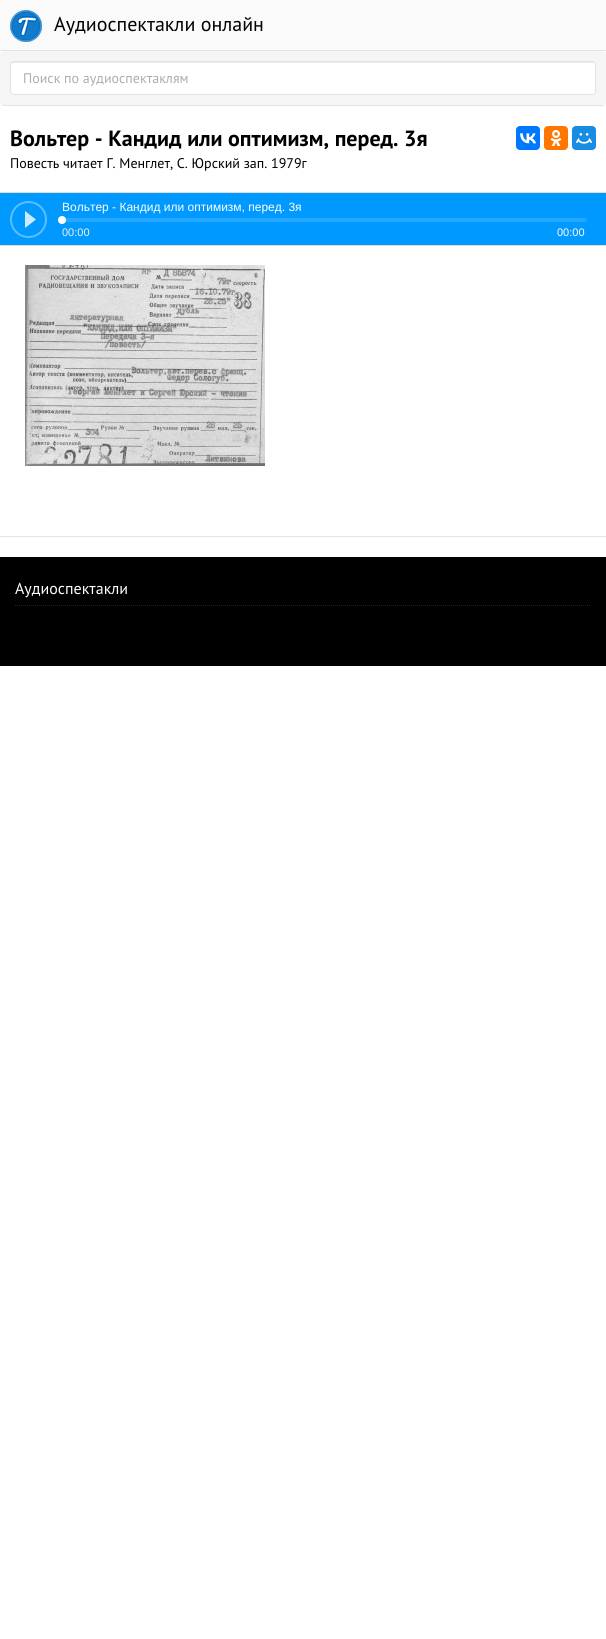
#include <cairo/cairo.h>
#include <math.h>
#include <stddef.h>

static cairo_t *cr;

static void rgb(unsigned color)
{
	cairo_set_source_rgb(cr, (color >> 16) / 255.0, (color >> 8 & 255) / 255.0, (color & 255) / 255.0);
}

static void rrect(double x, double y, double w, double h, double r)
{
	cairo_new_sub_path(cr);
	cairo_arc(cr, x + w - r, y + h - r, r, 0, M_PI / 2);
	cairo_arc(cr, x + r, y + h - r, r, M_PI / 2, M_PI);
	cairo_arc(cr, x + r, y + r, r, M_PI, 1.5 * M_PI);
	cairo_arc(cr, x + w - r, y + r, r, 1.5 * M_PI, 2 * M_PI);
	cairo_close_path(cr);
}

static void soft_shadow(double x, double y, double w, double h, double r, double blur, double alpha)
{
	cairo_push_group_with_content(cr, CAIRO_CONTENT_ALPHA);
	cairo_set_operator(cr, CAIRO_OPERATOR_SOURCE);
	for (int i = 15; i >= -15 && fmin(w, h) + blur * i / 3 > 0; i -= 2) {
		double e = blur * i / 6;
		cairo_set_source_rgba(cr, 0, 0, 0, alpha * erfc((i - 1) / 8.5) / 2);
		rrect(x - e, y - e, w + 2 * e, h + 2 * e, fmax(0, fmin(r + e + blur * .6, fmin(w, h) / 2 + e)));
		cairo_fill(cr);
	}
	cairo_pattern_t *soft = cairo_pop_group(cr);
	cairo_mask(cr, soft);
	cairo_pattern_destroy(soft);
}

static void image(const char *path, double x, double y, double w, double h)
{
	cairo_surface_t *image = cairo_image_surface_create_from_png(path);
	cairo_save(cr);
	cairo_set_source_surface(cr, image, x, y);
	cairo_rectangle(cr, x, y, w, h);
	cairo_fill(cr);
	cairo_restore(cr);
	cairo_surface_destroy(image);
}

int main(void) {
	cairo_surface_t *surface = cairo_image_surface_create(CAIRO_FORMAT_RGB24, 606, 1639);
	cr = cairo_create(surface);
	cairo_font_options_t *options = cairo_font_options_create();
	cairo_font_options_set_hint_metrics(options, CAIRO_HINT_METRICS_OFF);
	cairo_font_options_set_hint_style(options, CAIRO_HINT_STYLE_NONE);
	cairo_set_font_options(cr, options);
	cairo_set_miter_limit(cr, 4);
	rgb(0xffffff);
	cairo_paint(cr);
	rgb(0xfafafa);
	cairo_rectangle(cr, 0, 0, 606, 50);
	cairo_fill(cr);
	rgb(0xe4e4e4);
	cairo_rectangle(cr, 0, 50, 606, 1);
	cairo_fill(cr);
	image("img/1.png", 10, 10, 32, 32);
	rgb(0xf5f5f5);
	rrect(0, 51, 606, 55, 4);
	cairo_fill(cr);
	rgb(0xe4e4e4);
	cairo_rectangle(cr, 2, 105, 602, 1);
	cairo_fill(cr);
	rgb(0xffffff);
	rrect(10, 61, 586, 34, 4);
	cairo_fill(cr);
	rgb(0xececec);
	cairo_new_path(cr);
	cairo_move_to(cr, 14, 63);
	cairo_line_to(cr, 592, 63);
	cairo_curve_to(cr, 594, 63, 595, 64, 595, 66);
	cairo_line_to(cr, 595, 65);
	cairo_curve_to(cr, 595, 63, 594, 62, 592, 62);
	cairo_line_to(cr, 14, 62);
	cairo_curve_to(cr, 12, 62, 11, 63, 11, 65);
	cairo_line_to(cr, 11, 66);
	cairo_curve_to(cr, 11, 64, 12, 63, 14, 63);
	cairo_close_path(cr);
	cairo_fill(cr);
	rrect(10.5, 61.5, 585, 33, 3.5);
	rgb(0xdfe3e8);
	cairo_set_line_width(cr, 1);
	cairo_stroke(cr);
	rgb(0xe4e4e4);
	cairo_rectangle(cr, 0, 536, 606, 1);
	cairo_fill(cr);
	rgb(0x0077ff);
	rrect(516, 126, 24, 24, 4);
	cairo_fill(cr);
	image("img/2.png", 520, 133, 16, 11);
	rgb(0xff7700);
	rrect(544, 126, 24, 24, 4);
	cairo_fill(cr);
	image("img/3.png", 550, 130, 12, 16);
	rgb(0x168de2);
	rrect(572, 126, 24, 24, 4);
	cairo_fill(cr);
	image("img/4.png", 576, 133, 16, 11);
	rgb(0x000000);
	soft_shadow(0, 193, 606, 52, 0, 0.5, 0.5);
	rgb(0x0099ff);
	cairo_rectangle(cr, 0, 193, 606, 52);
	cairo_fill(cr);
	rgb(0x1aa3ff);
	cairo_rectangle(cr, 585, 218, 2, 4);
	cairo_fill(cr);
	image("img/5.png", 10, 201, 37, 37);
	rgb(0x25a8ff);
	cairo_rectangle(cr, 61, 218, 524, 4);
	cairo_fill(cr);
	rgb(0xffffff);
	cairo_arc(cr, 62, 220, 4, 0, 2 * M_PI);
	cairo_fill(cr);
	image("img/6.png", 25, 265, 240, 201);
	rgb(0x000000);
	cairo_rectangle(cr, 0, 557, 606, 109);
	cairo_fill(cr);
	cairo_new_path(cr);
	cairo_move_to(cr, 15, 605.5);
	cairo_line_to(cr, 591, 605.5);
	rgb(0x222222);
	cairo_set_dash(cr, (double[]){1, 1}, 2, 0);
	cairo_stroke(cr);
	cairo_select_font_face(cr, "PT Sans", CAIRO_FONT_SLANT_NORMAL, CAIRO_FONT_WEIGHT_NORMAL);
	cairo_set_font_size(cr, 20);
	rgb(0x000000);
	cairo_move_to(cr, 54, 31);
	cairo_show_text(cr, "Аудиоспектакли онлайн");
	cairo_set_font_size(cr, 14);
	rgb(0xadadad);
	cairo_move_to(cr, 23, 83);
	cairo_show_text(cr, "Поиск по аудиоспектаклям");
	cairo_select_font_face(cr, "PT Sans", CAIRO_FONT_SLANT_NORMAL, CAIRO_FONT_WEIGHT_BOLD);
	cairo_set_font_size(cr, 22);
	rgb(0x000000);
	cairo_move_to(cr, 10, 146);
	cairo_show_text(cr, "Вольтер - Кандид или оптимизм, перед. 3я");
	cairo_select_font_face(cr, "PT Sans", CAIRO_FONT_SLANT_NORMAL, CAIRO_FONT_WEIGHT_NORMAL);
	cairo_set_font_size(cr, 14);
	cairo_move_to(cr, 10, 168);
	cairo_show_text(cr, "Повесть читает Г. Менглет, С. Юрский зап. 1979г");
	cairo_select_font_face(cr, "Liberation Sans", CAIRO_FONT_SLANT_NORMAL, CAIRO_FONT_WEIGHT_NORMAL);
	cairo_set_font_size(cr, 12);
	rgb(0xffffff);
	cairo_move_to(cr, 62, 211);
	cairo_show_text(cr, "Вольтер - Кандид или оптимизм, перед. 3я");
	cairo_set_font_size(cr, 11);
	rgb(0xf0f0f0);
	cairo_move_to(cr, 62, 236);
	cairo_show_text(cr, "00:00");
	rgb(0xffffff);
	cairo_move_to(cr, 557, 236);
	cairo_show_text(cr, "00:00");
	cairo_select_font_face(cr, "PT Sans", CAIRO_FONT_SLANT_NORMAL, CAIRO_FONT_WEIGHT_NORMAL);
	cairo_set_font_size(cr, 16);
	cairo_move_to(cr, 15, 594);
	cairo_show_text(cr, "Аудиоспектакли");
	cairo_surface_write_to_png(surface, "page.png");
	cairo_font_options_destroy(options);
	cairo_destroy(cr);
	cairo_surface_destroy(surface);
	return 0;
}
